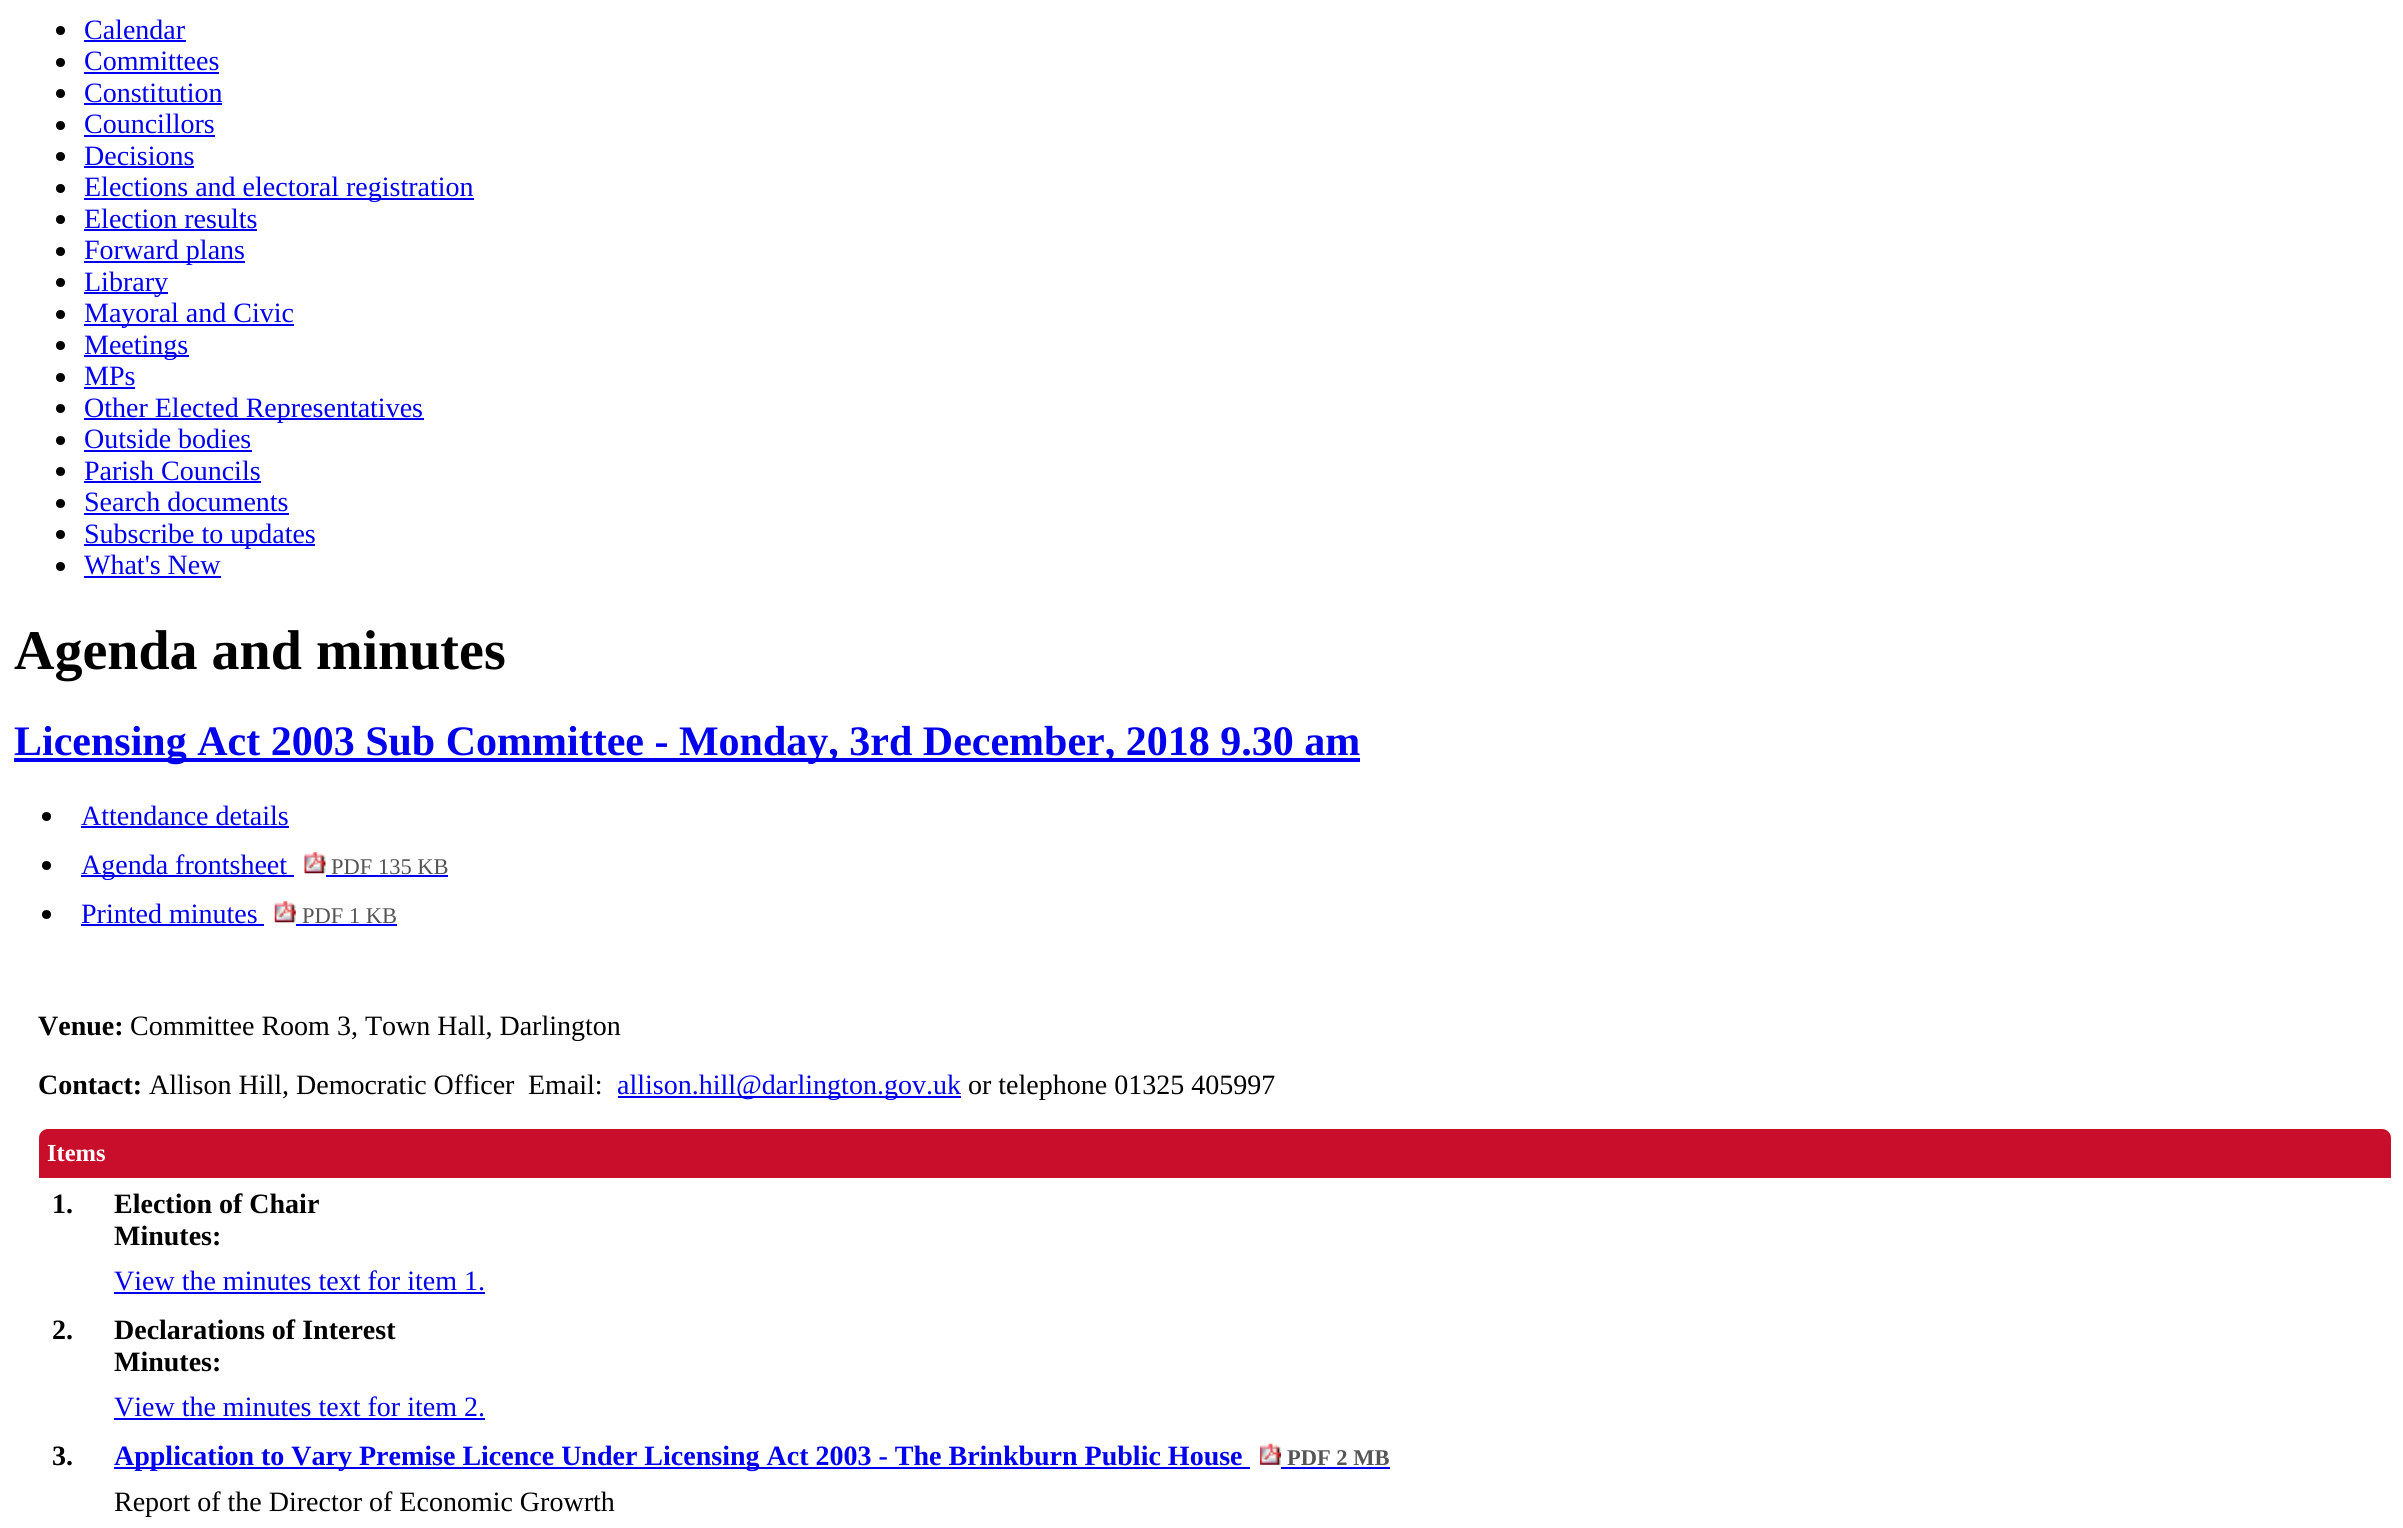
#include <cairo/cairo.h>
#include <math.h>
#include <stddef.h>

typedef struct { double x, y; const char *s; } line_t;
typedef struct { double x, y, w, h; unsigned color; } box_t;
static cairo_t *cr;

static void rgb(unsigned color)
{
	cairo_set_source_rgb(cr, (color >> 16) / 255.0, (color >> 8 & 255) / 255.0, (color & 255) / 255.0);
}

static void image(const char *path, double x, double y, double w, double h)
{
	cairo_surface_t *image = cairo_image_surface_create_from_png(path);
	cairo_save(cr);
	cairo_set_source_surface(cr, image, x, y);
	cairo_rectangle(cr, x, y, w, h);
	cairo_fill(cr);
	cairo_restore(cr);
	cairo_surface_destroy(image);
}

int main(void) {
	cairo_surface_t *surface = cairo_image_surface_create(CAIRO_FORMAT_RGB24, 2403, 1528);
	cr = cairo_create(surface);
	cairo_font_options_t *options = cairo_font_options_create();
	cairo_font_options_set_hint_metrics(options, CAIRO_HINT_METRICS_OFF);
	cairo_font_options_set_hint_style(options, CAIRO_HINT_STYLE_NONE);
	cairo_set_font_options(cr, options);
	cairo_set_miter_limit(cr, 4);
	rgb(0xffffff);
	cairo_paint(cr);
	rgb(0x000000);
	cairo_arc(cr, 60.5, 30.5, 4.5, 0, 2 * M_PI);
	cairo_fill(cr);
	rgb(0x0000ee);
	cairo_rectangle(cr, 84, 40, 102, 2);
	cairo_fill(cr);
	rgb(0x000000);
	cairo_arc(cr, 60.5, 62.5, 4.5, 0, 2 * M_PI);
	cairo_fill(cr);
	rgb(0x0000ee);
	cairo_rectangle(cr, 84, 72, 135, 2);
	cairo_fill(cr);
	rgb(0x000000);
	cairo_arc(cr, 60.5, 93.5, 4.5, 0, 2 * M_PI);
	cairo_fill(cr);
	rgb(0x0000ee);
	cairo_rectangle(cr, 84, 103, 138, 2);
	cairo_fill(cr);
	rgb(0x000000);
	cairo_arc(cr, 60.5, 125.5, 4.5, 0, 2 * M_PI);
	cairo_fill(cr);
	rgb(0x0000ee);
	cairo_rectangle(cr, 84, 135, 131, 2);
	cairo_fill(cr);
	rgb(0x000000);
	cairo_arc(cr, 60.5, 156.5, 4.5, 0, 2 * M_PI);
	cairo_fill(cr);
	rgb(0x0000ee);
	cairo_rectangle(cr, 84, 166, 110, 2);
	cairo_fill(cr);
	rgb(0x000000);
	cairo_arc(cr, 60.5, 188.5, 4.5, 0, 2 * M_PI);
	cairo_fill(cr);
	rgb(0x0000ee);
	cairo_rectangle(cr, 84, 198, 390, 2);
	cairo_fill(cr);
	rgb(0x000000);
	cairo_arc(cr, 60.5, 219.5, 4.5, 0, 2 * M_PI);
	cairo_fill(cr);
	rgb(0x0000ee);
	cairo_rectangle(cr, 84, 229, 173, 2);
	cairo_fill(cr);
	rgb(0x000000);
	cairo_arc(cr, 60.5, 251.5, 4.5, 0, 2 * M_PI);
	cairo_fill(cr);
	rgb(0x0000ee);
	cairo_rectangle(cr, 84, 261, 161, 2);
	cairo_fill(cr);
	rgb(0x000000);
	cairo_arc(cr, 60.5, 282.5, 4.5, 0, 2 * M_PI);
	cairo_fill(cr);
	rgb(0x0000ee);
	cairo_rectangle(cr, 84, 292, 84, 2);
	cairo_fill(cr);
	rgb(0x000000);
	cairo_arc(cr, 60.5, 314.5, 4.5, 0, 2 * M_PI);
	cairo_fill(cr);
	rgb(0x0000ee);
	cairo_rectangle(cr, 84, 324, 210, 2);
	cairo_fill(cr);
	rgb(0x000000);
	cairo_arc(cr, 60.5, 345.5, 4.5, 0, 2 * M_PI);
	cairo_fill(cr);
	rgb(0x0000ee);
	cairo_rectangle(cr, 84, 355, 105, 2);
	cairo_fill(cr);
	rgb(0x000000);
	cairo_arc(cr, 60.5, 377.5, 4.5, 0, 2 * M_PI);
	cairo_fill(cr);
	rgb(0x0000ee);
	cairo_rectangle(cr, 84, 387, 51, 2);
	cairo_fill(cr);
	rgb(0x000000);
	cairo_arc(cr, 60.5, 408.5, 4.5, 0, 2 * M_PI);
	cairo_fill(cr);
	rgb(0x0000ee);
	cairo_rectangle(cr, 84, 418, 340, 2);
	cairo_fill(cr);
	rgb(0x000000);
	cairo_arc(cr, 60.5, 440.5, 4.5, 0, 2 * M_PI);
	cairo_fill(cr);
	rgb(0x0000ee);
	cairo_rectangle(cr, 84, 450, 168, 2);
	cairo_fill(cr);
	rgb(0x000000);
	cairo_arc(cr, 60.5, 471.5, 4.5, 0, 2 * M_PI);
	cairo_fill(cr);
	rgb(0x0000ee);
	cairo_rectangle(cr, 84, 481, 177, 2);
	cairo_fill(cr);
	rgb(0x000000);
	cairo_arc(cr, 60.5, 503.5, 4.5, 0, 2 * M_PI);
	cairo_fill(cr);
	rgb(0x0000ee);
	cairo_rectangle(cr, 84, 513, 205, 2);
	cairo_fill(cr);
	rgb(0x000000);
	cairo_arc(cr, 60.5, 534.5, 4.5, 0, 2 * M_PI);
	cairo_fill(cr);
	rgb(0x0000ee);
	cairo_rectangle(cr, 84, 544, 231, 2);
	cairo_fill(cr);
	rgb(0x000000);
	cairo_arc(cr, 60.5, 566.5, 4.5, 0, 2 * M_PI);
	cairo_fill(cr);
	rgb(0x0000ee);
	cairo_rectangle(cr, 84, 576, 137, 2);
	cairo_fill(cr);
	cairo_rectangle(cr, 14, 758, 1346, 4);
	cairo_fill(cr);
	rgb(0x000000);
	cairo_arc(cr, 46.5, 816.5, 4.5, 0, 2 * M_PI);
	cairo_fill(cr);
	rgb(0x0000ee);
	cairo_rectangle(cr, 81, 826, 208, 2);
	cairo_fill(cr);
	rgb(0x000000);
	cairo_arc(cr, 46.5, 865.5, 4.5, 0, 2 * M_PI);
	cairo_fill(cr);
	rgb(0x0000ee);
	cairo_rectangle(cr, 81, 875, 213, 2);
	cairo_fill(cr);
	image("img/1.png", 304, 852, 22, 22);
	cairo_rectangle(cr, 326, 875, 122, 2);
	cairo_fill(cr);
	rgb(0x000000);
	cairo_arc(cr, 46.5, 914.5, 4.5, 0, 2 * M_PI);
	cairo_fill(cr);
	rgb(0x0000ee);
	cairo_rectangle(cr, 81, 924, 183, 2);
	cairo_fill(cr);
	image("img/2.png", 274, 901, 22, 22);
	cairo_rectangle(cr, 296, 924, 101, 2);
	cairo_fill(cr);
	cairo_rectangle(cr, 618, 1096, 343, 2);
	cairo_fill(cr);
	rgb(0xc90e2b);
	cairo_new_path(cr);
	cairo_move_to(cr, 48, 1129);
	cairo_line_to(cr, 2382, 1129);
	cairo_curve_to(cr, 2387, 1129, 2391, 1133, 2391, 1138);
	cairo_line_to(cr, 2391, 1178);
	cairo_line_to(cr, 39, 1178);
	cairo_line_to(cr, 39, 1138);
	cairo_curve_to(cr, 39, 1133, 43, 1129, 48, 1129);
	cairo_close_path(cr);
	cairo_fill(cr);
	{
		static const box_t items[] = {
			{114, 1292, 371, 2, 0x0000ee},
			{114, 1418, 371, 2, 0x0000ee},
			{114, 1467, 1136, 2, 0x0000ee},
		};
		for (size_t i = 0; i < sizeof items / sizeof *items; i++) {
			rgb(items[i].color);
			cairo_rectangle(cr, items[i].x, items[i].y, items[i].w, items[i].h);
			cairo_fill(cr);
		}
	}
	image("img/3.png", 1260, 1443, 21, 22);
	cairo_rectangle(cr, 1281, 1467, 109, 2);
	cairo_fill(cr);
	cairo_select_font_face(cr, "Liberation Serif", CAIRO_FONT_SLANT_NORMAL, CAIRO_FONT_WEIGHT_NORMAL);
	cairo_set_font_size(cr, 28);
	{
		static const line_t items[] = {
			{84, 39, "Calendar"},
			{84, 70, "Committees"},
			{84, 102, "Constitution"},
			{84, 133, "Councillors"},
			{84, 165, "Decisions"},
			{84, 196, "Elections and electoral registration"},
			{84, 228, "Election results"},
			{84, 259, "Forward plans"},
			{84, 291, "Library"},
			{84, 322, "Mayoral and Civic"},
			{84, 354, "Meetings"},
			{84, 385, "MPs"},
			{84, 417, "Other Elected Representatives"},
			{84, 448, "Outside bodies"},
			{84, 480, "Parish Councils"},
			{84, 511, "Search documents"},
			{84, 543, "Subscribe to updates"},
			{84, 574, "What's New"},
		};
		for (size_t i = 0; i < sizeof items / sizeof *items; i++) {
			cairo_move_to(cr, items[i].x, items[i].y);
			cairo_show_text(cr, items[i].s);
		}
	}
	cairo_select_font_face(cr, "Liberation Serif", CAIRO_FONT_SLANT_NORMAL, CAIRO_FONT_WEIGHT_BOLD);
	cairo_set_font_size(cr, 56);
	rgb(0x000000);
	cairo_move_to(cr, 14, 669);
	cairo_show_text(cr, "Agenda and minutes");
	cairo_set_font_size(cr, 42);
	rgb(0x0000ee);
	cairo_move_to(cr, 14, 755);
	cairo_show_text(cr, "Licensing Act 2003 Sub Committee - Monday, 3rd December, 2018 9.30 am");
	cairo_select_font_face(cr, "Liberation Serif", CAIRO_FONT_SLANT_NORMAL, CAIRO_FONT_WEIGHT_NORMAL);
	cairo_set_font_size(cr, 28);
	cairo_move_to(cr, 81, 825);
	cairo_show_text(cr, "Attendance details");
	cairo_move_to(cr, 81, 874);
	cairo_show_text(cr, "Agenda frontsheet");
	cairo_set_font_size(cr, 22.5);
	rgb(0x555555);
	cairo_move_to(cr, 331, 874);
	cairo_show_text(cr, "PDF 135 KB");
	cairo_set_font_size(cr, 28);
	rgb(0x0000ee);
	cairo_move_to(cr, 81, 923);
	cairo_show_text(cr, "Printed minutes");
	cairo_set_font_size(cr, 22.5);
	rgb(0x555555);
	cairo_move_to(cr, 302, 923);
	cairo_show_text(cr, "PDF 1 KB");
	cairo_select_font_face(cr, "Liberation Serif", CAIRO_FONT_SLANT_NORMAL, CAIRO_FONT_WEIGHT_BOLD);
	cairo_set_font_size(cr, 28);
	rgb(0x000000);
	cairo_move_to(cr, 38, 1035);
	cairo_show_text(cr, "Venue:");
	cairo_select_font_face(cr, "Liberation Serif", CAIRO_FONT_SLANT_NORMAL, CAIRO_FONT_WEIGHT_NORMAL);
	cairo_move_to(cr, 130, 1035);
	cairo_show_text(cr, "Committee Room 3, Town Hall, Darlington");
	cairo_select_font_face(cr, "Liberation Serif", CAIRO_FONT_SLANT_NORMAL, CAIRO_FONT_WEIGHT_BOLD);
	cairo_move_to(cr, 38, 1094);
	cairo_show_text(cr, "Contact:");
	cairo_select_font_face(cr, "Liberation Serif", CAIRO_FONT_SLANT_NORMAL, CAIRO_FONT_WEIGHT_NORMAL);
	cairo_move_to(cr, 149, 1094);
	cairo_show_text(cr, "Allison Hill, Democratic Officer");
	cairo_move_to(cr, 528, 1094);
	cairo_show_text(cr, "Email:");
	rgb(0x0000ee);
	cairo_move_to(cr, 617, 1094);
	cairo_show_text(cr, "allison.hill@darlington.gov.uk");
	rgb(0x000000);
	cairo_move_to(cr, 968, 1094);
	cairo_show_text(cr, "or telephone 01325 405997");
	cairo_select_font_face(cr, "Liberation Serif", CAIRO_FONT_SLANT_NORMAL, CAIRO_FONT_WEIGHT_BOLD);
	cairo_set_font_size(cr, 24.5);
	rgb(0xffffff);
	cairo_move_to(cr, 47, 1161);
	cairo_show_text(cr, "Items");
	cairo_set_font_size(cr, 28);
	rgb(0x000000);
	{
		static const line_t items[] = {
			{52, 1213, "1."},
			{114, 1213, "Election of Chair"},
			{114, 1245, "Minutes:"},
		};
		for (size_t i = 0; i < sizeof items / sizeof *items; i++) {
			cairo_move_to(cr, items[i].x, items[i].y);
			cairo_show_text(cr, items[i].s);
		}
	}
	cairo_select_font_face(cr, "Liberation Serif", CAIRO_FONT_SLANT_NORMAL, CAIRO_FONT_WEIGHT_NORMAL);
	rgb(0x0000ee);
	cairo_move_to(cr, 114, 1290);
	cairo_show_text(cr, "View the minutes text for item 1.");
	cairo_select_font_face(cr, "Liberation Serif", CAIRO_FONT_SLANT_NORMAL, CAIRO_FONT_WEIGHT_BOLD);
	rgb(0x000000);
	{
		static const line_t items[] = {
			{52, 1339, "2."},
			{114, 1339, "Declarations of Interest"},
			{114, 1371, "Minutes:"},
		};
		for (size_t i = 0; i < sizeof items / sizeof *items; i++) {
			cairo_move_to(cr, items[i].x, items[i].y);
			cairo_show_text(cr, items[i].s);
		}
	}
	cairo_select_font_face(cr, "Liberation Serif", CAIRO_FONT_SLANT_NORMAL, CAIRO_FONT_WEIGHT_NORMAL);
	rgb(0x0000ee);
	cairo_move_to(cr, 114, 1416);
	cairo_show_text(cr, "View the minutes text for item 2.");
	cairo_select_font_face(cr, "Liberation Serif", CAIRO_FONT_SLANT_NORMAL, CAIRO_FONT_WEIGHT_BOLD);
	rgb(0x000000);
	cairo_move_to(cr, 52, 1465);
	cairo_show_text(cr, "3.");
	rgb(0x0000ee);
	cairo_move_to(cr, 114, 1465);
	cairo_show_text(cr, "Application to Vary Premise Licence Under Licensing Act 2003 - The Brinkburn Public House");
	cairo_set_font_size(cr, 22.5);
	rgb(0x555555);
	cairo_move_to(cr, 1287, 1465);
	cairo_show_text(cr, "PDF 2 MB");
	cairo_select_font_face(cr, "Liberation Serif", CAIRO_FONT_SLANT_NORMAL, CAIRO_FONT_WEIGHT_NORMAL);
	cairo_set_font_size(cr, 28);
	rgb(0x000000);
	cairo_move_to(cr, 114, 1511);
	cairo_show_text(cr, "Report of the Director of Economic Growrth");
	cairo_surface_write_to_png(surface, "page.png");
	cairo_font_options_destroy(options);
	cairo_destroy(cr);
	cairo_surface_destroy(surface);
	return 0;
}
